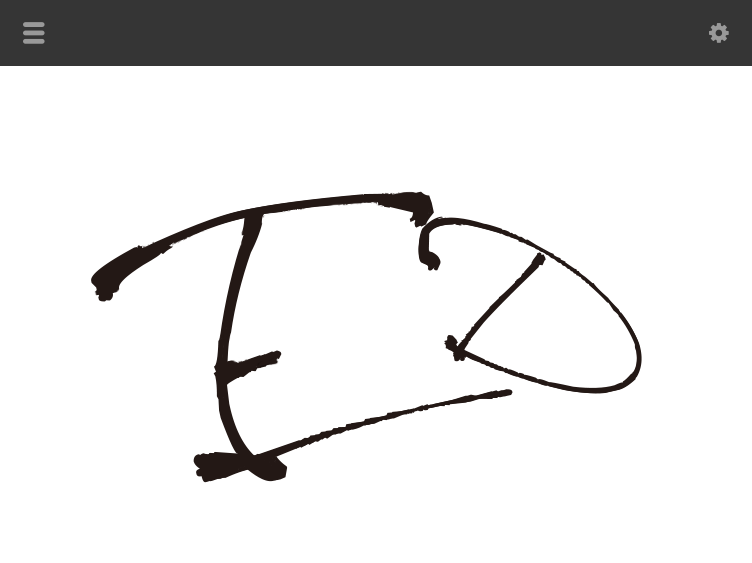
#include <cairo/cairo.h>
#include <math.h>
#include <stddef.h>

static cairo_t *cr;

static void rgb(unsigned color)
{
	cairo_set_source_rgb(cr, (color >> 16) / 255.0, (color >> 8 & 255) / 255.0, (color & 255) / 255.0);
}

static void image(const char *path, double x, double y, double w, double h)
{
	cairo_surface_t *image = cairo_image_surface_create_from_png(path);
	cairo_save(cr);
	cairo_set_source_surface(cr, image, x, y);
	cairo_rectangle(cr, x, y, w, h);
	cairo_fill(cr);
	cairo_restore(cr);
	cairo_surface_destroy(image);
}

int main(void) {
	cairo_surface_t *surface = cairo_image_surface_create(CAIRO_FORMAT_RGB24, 752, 563);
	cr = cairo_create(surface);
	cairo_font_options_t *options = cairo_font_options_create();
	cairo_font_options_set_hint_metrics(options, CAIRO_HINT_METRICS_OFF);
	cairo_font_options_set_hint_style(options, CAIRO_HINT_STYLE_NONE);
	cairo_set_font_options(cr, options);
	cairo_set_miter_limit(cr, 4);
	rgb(0xffffff);
	cairo_paint(cr);
	rgb(0x353535);
	cairo_rectangle(cr, 0, 0, 752, 66);
	cairo_fill(cr);
	image("img/1.png", 23, 22, 22, 22);
	image("img/2.png", 709, 23, 20, 20);
	image("img/3.png", 91, 191, 551, 292);
	cairo_surface_write_to_png(surface, "page.png");
	cairo_font_options_destroy(options);
	cairo_destroy(cr);
	cairo_surface_destroy(surface);
	return 0;
}
